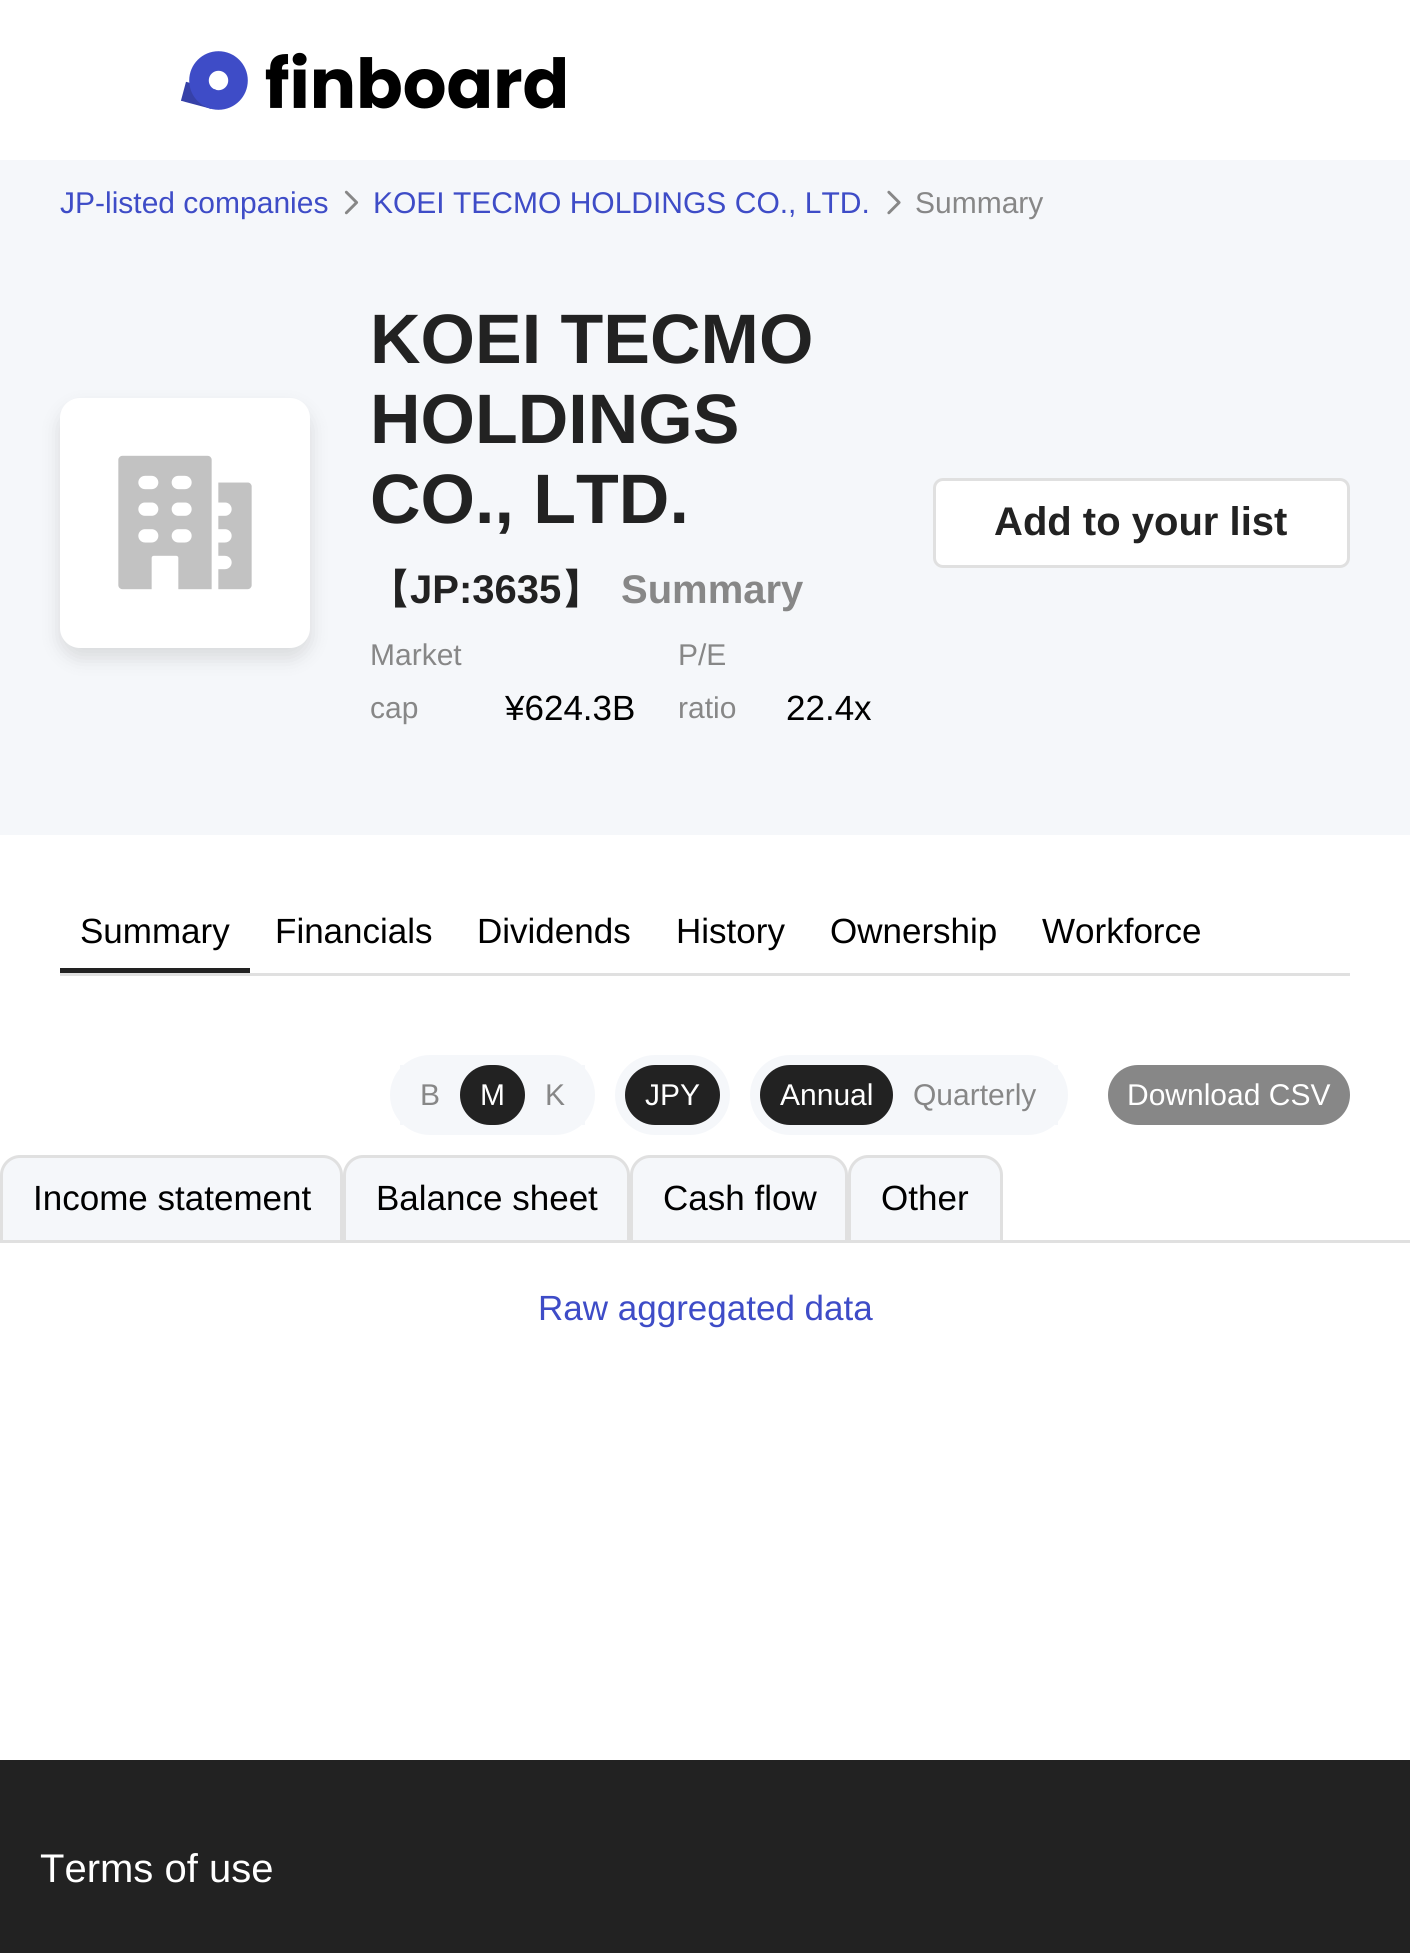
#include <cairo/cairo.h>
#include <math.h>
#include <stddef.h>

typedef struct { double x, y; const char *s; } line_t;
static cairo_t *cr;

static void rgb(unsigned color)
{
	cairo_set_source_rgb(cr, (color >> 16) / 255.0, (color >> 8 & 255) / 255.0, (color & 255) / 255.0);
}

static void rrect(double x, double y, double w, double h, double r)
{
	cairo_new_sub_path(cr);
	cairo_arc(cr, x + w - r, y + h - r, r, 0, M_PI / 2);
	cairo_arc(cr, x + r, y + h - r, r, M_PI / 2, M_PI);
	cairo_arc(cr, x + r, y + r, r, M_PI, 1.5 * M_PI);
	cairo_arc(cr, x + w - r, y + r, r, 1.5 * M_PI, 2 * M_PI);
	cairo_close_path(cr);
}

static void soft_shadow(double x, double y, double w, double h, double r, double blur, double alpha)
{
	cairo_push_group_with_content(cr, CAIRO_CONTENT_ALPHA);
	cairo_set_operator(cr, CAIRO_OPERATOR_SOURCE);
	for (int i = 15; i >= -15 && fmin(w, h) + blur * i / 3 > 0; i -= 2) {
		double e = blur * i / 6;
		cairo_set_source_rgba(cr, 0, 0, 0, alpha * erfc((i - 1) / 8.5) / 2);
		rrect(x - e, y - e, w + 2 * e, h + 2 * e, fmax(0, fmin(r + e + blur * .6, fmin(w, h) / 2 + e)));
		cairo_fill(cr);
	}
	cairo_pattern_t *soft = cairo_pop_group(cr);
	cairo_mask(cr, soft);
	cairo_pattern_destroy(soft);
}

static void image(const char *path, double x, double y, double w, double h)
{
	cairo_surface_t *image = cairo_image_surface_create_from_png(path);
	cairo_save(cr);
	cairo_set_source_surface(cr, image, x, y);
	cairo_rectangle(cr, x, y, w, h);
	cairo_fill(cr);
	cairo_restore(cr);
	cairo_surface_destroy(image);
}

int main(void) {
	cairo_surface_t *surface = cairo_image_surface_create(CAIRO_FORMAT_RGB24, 1410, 1953);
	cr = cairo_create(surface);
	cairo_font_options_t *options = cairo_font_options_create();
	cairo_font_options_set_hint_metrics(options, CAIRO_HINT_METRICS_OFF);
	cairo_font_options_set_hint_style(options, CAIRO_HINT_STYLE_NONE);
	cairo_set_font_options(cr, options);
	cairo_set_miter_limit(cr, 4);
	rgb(0xffffff);
	cairo_paint(cr);
	image("img/1.png", 181, 51, 384, 59);
	rgb(0xf5f7fa);
	cairo_rectangle(cr, 0, 160, 1410, 675);
	cairo_fill(cr);
	image("img/2.png", 344, 190, 15, 25);
	image("img/3.png", 887, 190, 14, 25);
	rgb(0x000000);
	soft_shadow(60, 408, 250, 250, 20, 10, 0.12);
	rgb(0xffffff);
	rrect(60, 398, 250, 250, 20);
	cairo_fill(cr);
	image("img/4.png", 118, 455, 134, 135);
	rrect(934.5, 479.5, 414, 87, 8.5);
	cairo_fill_preserve(cr);
	rgb(0xe0e0e0);
	cairo_set_line_width(cr, 3);
	cairo_stroke(cr);
	cairo_rectangle(cr, 60, 973, 1290, 3);
	cairo_fill(cr);
	rgb(0x222222);
	cairo_rectangle(cr, 60, 968, 190, 5);
	cairo_fill(cr);
	rgb(0xf5f7fa);
	rrect(390, 1055, 205, 80, 40);
	cairo_fill(cr);
	cairo_rectangle(cr, 400, 1065, 3, 60);
	cairo_fill(cr);
	rgb(0x222222);
	rrect(460, 1065, 65, 60, 30);
	cairo_fill(cr);
	rgb(0xf5f7fa);
	cairo_rectangle(cr, 582, 1065, 3, 60);
	cairo_fill(cr);
	rrect(615, 1055, 115, 80, 40);
	cairo_fill(cr);
	rgb(0x222222);
	rrect(625, 1065, 95, 60, 30);
	cairo_fill(cr);
	rgb(0xf5f7fa);
	rrect(750, 1055, 318, 80, 40);
	cairo_fill(cr);
	rgb(0x222222);
	rrect(760, 1065, 133, 60, 30);
	cairo_fill(cr);
	rgb(0xf5f7fa);
	cairo_rectangle(cr, 1055, 1065, 3, 60);
	cairo_fill(cr);
	rgb(0x878787);
	rrect(1108, 1065, 242, 60, 30);
	cairo_fill(cr);
	rgb(0xf5f7fa);
	cairo_new_path(cr);
	cairo_move_to(cr, 20, 1156.5);
	cairo_line_to(cr, 323, 1156.5);
	cairo_curve_to(cr, 333, 1156.5, 341.5, 1165, 341.5, 1175);
	cairo_line_to(cr, 341.5, 1241.5);
	cairo_line_to(cr, 1.5, 1241.5);
	cairo_line_to(cr, 1.5, 1175);
	cairo_curve_to(cr, 1.5, 1165, 10, 1156.5, 20, 1156.5);
	cairo_close_path(cr);
	cairo_fill_preserve(cr);
	rgb(0xe0e0e0);
	cairo_stroke(cr);
	rgb(0xf5f7fa);
	cairo_new_path(cr);
	cairo_move_to(cr, 363, 1156.5);
	cairo_line_to(cr, 610, 1156.5);
	cairo_curve_to(cr, 620, 1156.5, 628.5, 1165, 628.5, 1175);
	cairo_line_to(cr, 628.5, 1241.5);
	cairo_line_to(cr, 344.5, 1241.5);
	cairo_line_to(cr, 344.5, 1175);
	cairo_curve_to(cr, 344.5, 1165, 353, 1156.5, 363, 1156.5);
	cairo_close_path(cr);
	cairo_fill_preserve(cr);
	rgb(0xe0e0e0);
	cairo_stroke(cr);
	rgb(0xf5f7fa);
	cairo_new_path(cr);
	cairo_move_to(cr, 650, 1156.5);
	cairo_line_to(cr, 828, 1156.5);
	cairo_curve_to(cr, 838, 1156.5, 846.5, 1165, 846.5, 1175);
	cairo_line_to(cr, 846.5, 1241.5);
	cairo_line_to(cr, 631.5, 1241.5);
	cairo_line_to(cr, 631.5, 1175);
	cairo_curve_to(cr, 631.5, 1165, 640, 1156.5, 650, 1156.5);
	cairo_close_path(cr);
	cairo_fill_preserve(cr);
	rgb(0xe0e0e0);
	cairo_stroke(cr);
	rgb(0xf5f7fa);
	cairo_new_path(cr);
	cairo_move_to(cr, 868, 1156.5);
	cairo_line_to(cr, 983, 1156.5);
	cairo_curve_to(cr, 993, 1156.5, 1001.5, 1165, 1001.5, 1175);
	cairo_line_to(cr, 1001.5, 1241.5);
	cairo_line_to(cr, 849.5, 1241.5);
	cairo_line_to(cr, 849.5, 1175);
	cairo_curve_to(cr, 849.5, 1165, 858, 1156.5, 868, 1156.5);
	cairo_close_path(cr);
	cairo_fill_preserve(cr);
	rgb(0xe0e0e0);
	cairo_stroke(cr);
	cairo_rectangle(cr, 1003, 1240, 407, 3);
	cairo_fill(cr);
	rgb(0x222222);
	cairo_rectangle(cr, 0, 1760, 1410, 193);
	cairo_fill(cr);
	cairo_select_font_face(cr, "Liberation Sans", CAIRO_FONT_SLANT_NORMAL, CAIRO_FONT_WEIGHT_NORMAL);
	cairo_set_font_size(cr, 30);
	rgb(0x3e4cc7);
	cairo_move_to(cr, 60, 213);
	cairo_show_text(cr, "JP-listed companies");
	cairo_move_to(cr, 373, 213);
	cairo_show_text(cr, "KOEI TECMO HOLDINGS CO., LTD.");
	rgb(0x878787);
	cairo_move_to(cr, 915, 213);
	cairo_show_text(cr, "Summary");
	cairo_select_font_face(cr, "Liberation Sans", CAIRO_FONT_SLANT_NORMAL, CAIRO_FONT_WEIGHT_BOLD);
	cairo_set_font_size(cr, 70);
	rgb(0x222222);
	{
		static const line_t items[] = {
			{370, 363, "KOEI TECMO"},
			{370, 443, "HOLDINGS"},
			{370, 523, "CO., LTD."},
		};
		for (size_t i = 0; i < sizeof items / sizeof *items; i++) {
			cairo_move_to(cr, items[i].x, items[i].y);
			cairo_show_text(cr, items[i].s);
		}
	}
	cairo_select_font_face(cr, "WenQuanYi Zen Hei", CAIRO_FONT_SLANT_NORMAL, CAIRO_FONT_WEIGHT_BOLD);
	cairo_set_font_size(cr, 40);
	cairo_move_to(cr, 370, 603);
	cairo_show_text(cr, "【");
	cairo_select_font_face(cr, "Liberation Sans", CAIRO_FONT_SLANT_NORMAL, CAIRO_FONT_WEIGHT_BOLD);
	cairo_move_to(cr, 410, 603);
	cairo_show_text(cr, "JP:3635");
	cairo_select_font_face(cr, "WenQuanYi Zen Hei", CAIRO_FONT_SLANT_NORMAL, CAIRO_FONT_WEIGHT_BOLD);
	cairo_move_to(cr, 561, 603);
	cairo_show_text(cr, "】");
	cairo_select_font_face(cr, "Liberation Sans", CAIRO_FONT_SLANT_NORMAL, CAIRO_FONT_WEIGHT_BOLD);
	rgb(0x878787);
	cairo_move_to(cr, 621, 603);
	cairo_show_text(cr, "Summary");
	cairo_select_font_face(cr, "Liberation Sans", CAIRO_FONT_SLANT_NORMAL, CAIRO_FONT_WEIGHT_NORMAL);
	cairo_set_font_size(cr, 30);
	cairo_move_to(cr, 370, 665);
	cairo_show_text(cr, "Market");
	cairo_move_to(cr, 370, 718);
	cairo_show_text(cr, "cap");
	cairo_set_font_size(cr, 35);
	rgb(0x000000);
	cairo_move_to(cr, 505, 720);
	cairo_show_text(cr, "¥624.3B");
	cairo_set_font_size(cr, 30);
	rgb(0x878787);
	cairo_move_to(cr, 678, 665);
	cairo_show_text(cr, "P/E");
	cairo_move_to(cr, 678, 718);
	cairo_show_text(cr, "ratio");
	cairo_set_font_size(cr, 35);
	rgb(0x000000);
	cairo_move_to(cr, 786, 720);
	cairo_show_text(cr, "22.4x");
	cairo_select_font_face(cr, "Liberation Sans", CAIRO_FONT_SLANT_NORMAL, CAIRO_FONT_WEIGHT_BOLD);
	cairo_set_font_size(cr, 40);
	rgb(0x222222);
	cairo_move_to(cr, 994, 535);
	cairo_show_text(cr, "Add to your list");
	cairo_select_font_face(cr, "Liberation Sans", CAIRO_FONT_SLANT_NORMAL, CAIRO_FONT_WEIGHT_NORMAL);
	cairo_set_font_size(cr, 35);
	rgb(0x000000);
	{
		static const line_t items[] = {
			{80, 943, "Summary"},
			{275, 943, "Financials"},
			{477, 943, "Dividends"},
			{676, 943, "History"},
			{830, 943, "Ownership"},
			{1042, 943, "Workforce"},
		};
		for (size_t i = 0; i < sizeof items / sizeof *items; i++) {
			cairo_move_to(cr, items[i].x, items[i].y);
			cairo_show_text(cr, items[i].s);
		}
	}
	cairo_set_font_size(cr, 30);
	rgb(0x878787);
	cairo_move_to(cr, 420, 1105);
	cairo_show_text(cr, "B");
	rgb(0xffffff);
	cairo_move_to(cr, 480, 1105);
	cairo_show_text(cr, "M");
	rgb(0x878787);
	cairo_move_to(cr, 545, 1105);
	cairo_show_text(cr, "K");
	rgb(0xffffff);
	cairo_move_to(cr, 645, 1105);
	cairo_show_text(cr, "JPY");
	cairo_move_to(cr, 780, 1105);
	cairo_show_text(cr, "Annual");
	rgb(0x878787);
	cairo_move_to(cr, 913, 1105);
	cairo_show_text(cr, "Quarterly");
	rgb(0xffffff);
	cairo_move_to(cr, 1127, 1105);
	cairo_show_text(cr, "Download CSV");
	cairo_set_font_size(cr, 35);
	rgb(0x000000);
	{
		static const line_t items[] = {
			{33, 1210, "Income statement"},
			{376, 1210, "Balance sheet"},
			{663, 1210, "Cash flow"},
			{881, 1210, "Other"},
		};
		for (size_t i = 0; i < sizeof items / sizeof *items; i++) {
			cairo_move_to(cr, items[i].x, items[i].y);
			cairo_show_text(cr, items[i].s);
		}
	}
	rgb(0x3e4cc7);
	cairo_move_to(cr, 538, 1320);
	cairo_show_text(cr, "Raw aggregated data");
	cairo_set_font_size(cr, 40);
	rgb(0xffffff);
	cairo_move_to(cr, 40, 1882);
	cairo_show_text(cr, "Terms of use");
	cairo_surface_write_to_png(surface, "page.png");
	cairo_font_options_destroy(options);
	cairo_destroy(cr);
	cairo_surface_destroy(surface);
	return 0;
}
